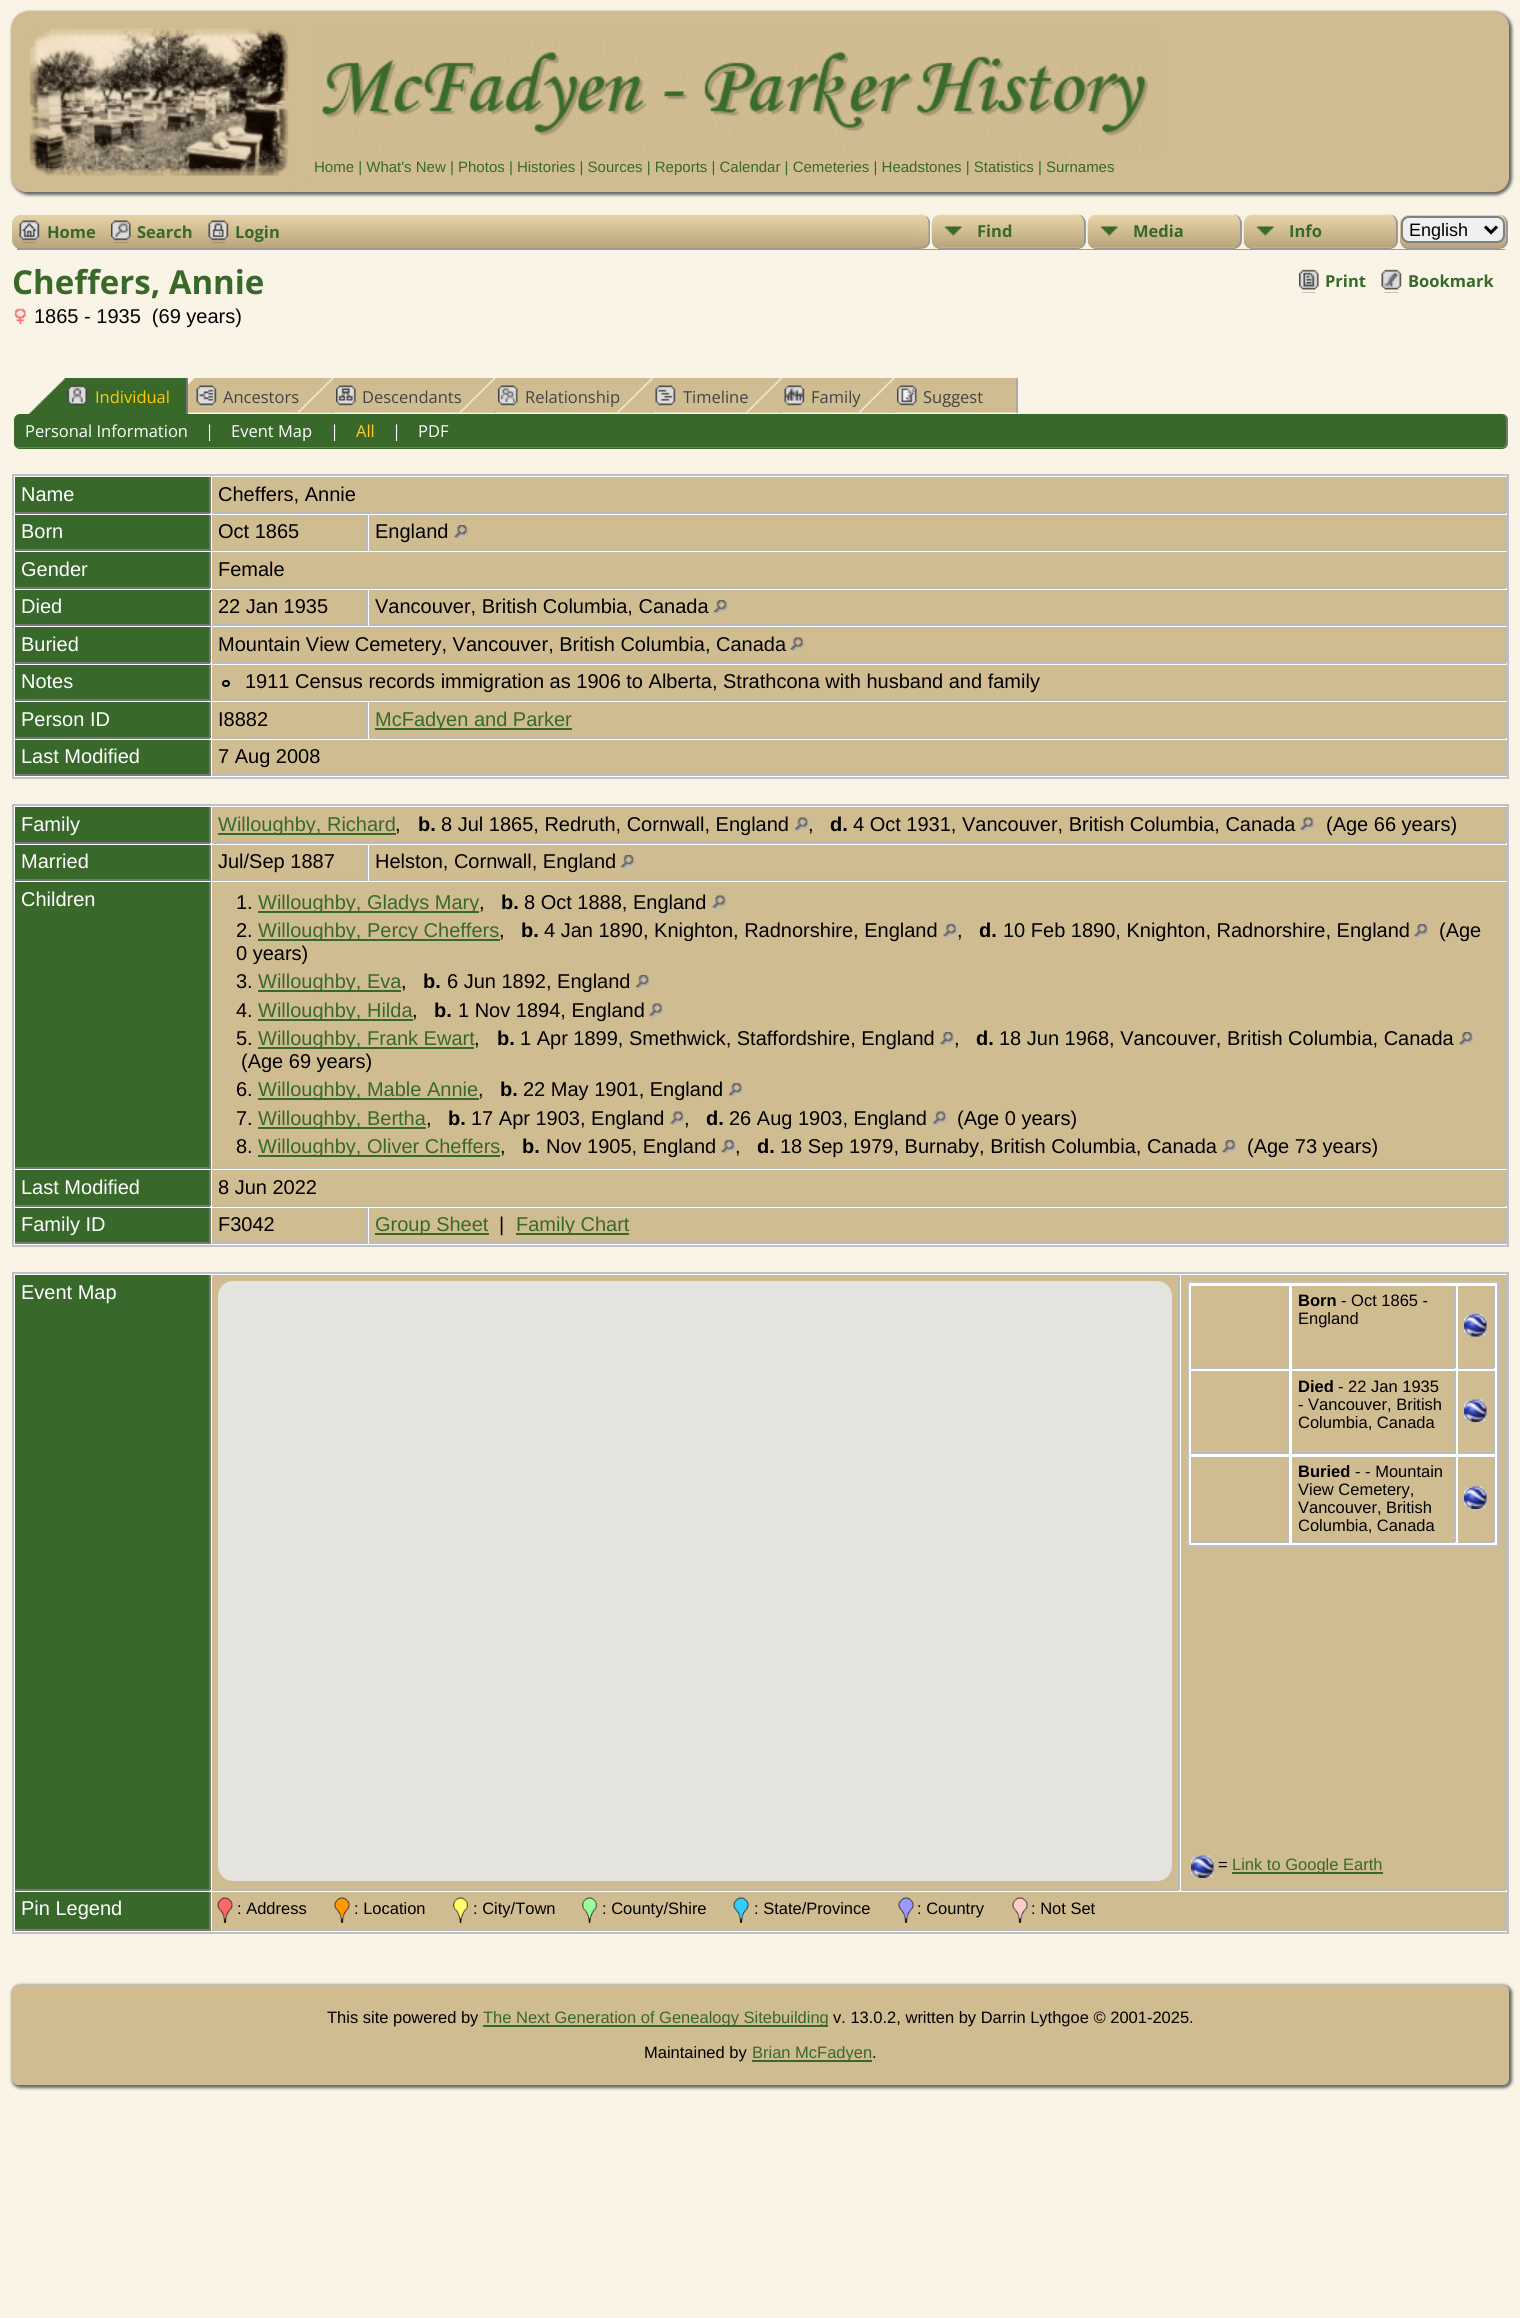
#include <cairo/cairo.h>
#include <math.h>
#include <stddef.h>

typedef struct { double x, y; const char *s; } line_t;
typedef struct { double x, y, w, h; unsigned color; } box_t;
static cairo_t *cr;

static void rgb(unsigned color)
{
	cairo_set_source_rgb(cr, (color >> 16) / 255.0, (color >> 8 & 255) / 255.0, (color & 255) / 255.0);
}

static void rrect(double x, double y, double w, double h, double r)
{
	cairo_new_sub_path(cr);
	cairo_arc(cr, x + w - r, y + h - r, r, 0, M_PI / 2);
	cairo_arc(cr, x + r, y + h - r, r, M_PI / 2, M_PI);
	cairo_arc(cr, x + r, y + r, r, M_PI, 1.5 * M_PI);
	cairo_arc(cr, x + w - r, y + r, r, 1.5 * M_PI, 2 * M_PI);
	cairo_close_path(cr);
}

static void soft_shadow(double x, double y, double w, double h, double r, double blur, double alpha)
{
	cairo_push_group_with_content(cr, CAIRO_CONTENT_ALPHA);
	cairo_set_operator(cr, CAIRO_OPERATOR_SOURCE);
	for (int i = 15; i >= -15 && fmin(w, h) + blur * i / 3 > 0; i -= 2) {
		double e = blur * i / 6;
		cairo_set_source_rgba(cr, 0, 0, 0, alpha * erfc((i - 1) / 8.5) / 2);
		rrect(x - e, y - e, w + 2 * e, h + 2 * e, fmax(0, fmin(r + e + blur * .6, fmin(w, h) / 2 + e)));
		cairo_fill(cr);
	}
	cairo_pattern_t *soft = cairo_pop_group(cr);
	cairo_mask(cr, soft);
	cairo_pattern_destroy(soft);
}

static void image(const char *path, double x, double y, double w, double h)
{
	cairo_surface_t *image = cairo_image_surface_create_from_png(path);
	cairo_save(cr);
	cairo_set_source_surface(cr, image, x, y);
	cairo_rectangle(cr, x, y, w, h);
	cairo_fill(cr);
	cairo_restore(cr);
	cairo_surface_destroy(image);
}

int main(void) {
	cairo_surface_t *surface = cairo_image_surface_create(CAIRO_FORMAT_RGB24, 1520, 2318);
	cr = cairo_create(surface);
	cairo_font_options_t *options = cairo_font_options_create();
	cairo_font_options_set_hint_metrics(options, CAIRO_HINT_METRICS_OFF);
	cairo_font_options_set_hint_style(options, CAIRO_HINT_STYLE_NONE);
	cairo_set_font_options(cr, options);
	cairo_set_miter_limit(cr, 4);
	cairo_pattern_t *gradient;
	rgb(0xfaf4e6);
	cairo_paint(cr);
	rgb(0x666666);
	soft_shadow(12, 12, 1500, 183, 17, 1.5, 1);
	rgb(0xd0bc91);
	rrect(12, 12, 1497, 180, 15);
	cairo_fill(cr);
	rrect(12, 12, 294, 180, 15);
	cairo_fill(cr);
	image("img/1.png", 29, 28, 260, 148);
	image("img/2.png", 318, 30, 843, 129);
	rrect(12, 215, 1497, 34, 9);
	cairo_fill(cr);
	cairo_save(cr);
	rrect(12, 215, 1497, 34, 9);
	cairo_clip(cr);
	gradient = cairo_pattern_create_linear(761, 214, 761, 248);
	cairo_pattern_add_color_stop_rgba(gradient, 0, 0.91, 0.835, 0.663, 1);
	cairo_pattern_add_color_stop_rgba(gradient, 1, 0.722, 0.647, 0.475, 1);
	cairo_set_source(cr, gradient);
	cairo_pattern_destroy(gradient);
	cairo_new_path(cr);
	cairo_move_to(cr, 21, 215);
	cairo_line_to(cr, 1500, 215);
	cairo_curve_to(cr, 1505, 215, 1509, 219, 1509, 224);
	cairo_line_to(cr, 1509, 248);
	cairo_line_to(cr, 12, 248);
	cairo_line_to(cr, 12, 224);
	cairo_curve_to(cr, 12, 219, 16, 215, 21, 215);
	cairo_close_path(cr);
	cairo_fill(cr);
	cairo_restore(cr);
	rgb(0x999999);
	cairo_rectangle(cr, 17, 248, 1488, 2);
	cairo_fill(cr);
	image("img/3.png", 19, 220, 21, 23);
	image("img/4.png", 111, 220, 20, 23);
	image("img/5.png", 208, 220, 21, 23);
	rgb(0xfaf4e6);
	cairo_rectangle(cr, 921, 215, 588, 34);
	cairo_fill(cr);
	cairo_save(cr);
	cairo_new_path(cr);
	cairo_move_to(cr, 914, 215);
	cairo_line_to(cr, 921, 215);
	cairo_curve_to(cr, 926, 215, 930, 219, 930, 224);
	cairo_line_to(cr, 930, 240);
	cairo_curve_to(cr, 930, 245, 926, 249, 921, 249);
	cairo_line_to(cr, 914, 249);
	cairo_close_path(cr);
	cairo_clip(cr);
	gradient = cairo_pattern_create_linear(921, 215, 921, 248);
	cairo_pattern_add_color_stop_rgba(gradient, 0, 0.91, 0.835, 0.663, 1);
	cairo_pattern_add_color_stop_rgba(gradient, 1, 0.722, 0.647, 0.475, 1);
	cairo_set_source(cr, gradient);
	cairo_pattern_destroy(gradient);
	cairo_rectangle(cr, 914, 215, 16, 33);
	cairo_fill(cr);
	gradient = cairo_pattern_create_linear(921, 248, 921, 281);
	cairo_pattern_add_color_stop_rgba(gradient, 0, 0.91, 0.835, 0.663, 1);
	cairo_pattern_add_color_stop_rgba(gradient, 1, 0.722, 0.647, 0.475, 1);
	cairo_set_source(cr, gradient);
	cairo_pattern_destroy(gradient);
	cairo_rectangle(cr, 914, 248, 16, 1);
	cairo_fill(cr);
	cairo_restore(cr);
	rgb(0x999999);
	cairo_set_fill_rule(cr, CAIRO_FILL_RULE_EVEN_ODD);
	cairo_new_path(cr);
	cairo_move_to(cr, 913.5, 214.5);
	cairo_curve_to(cr, 920, 214.5, 928, 213.5, 930, 221.5);
	cairo_line_to(cr, 930, 242);
	cairo_curve_to(cr, 928, 250, 920, 249, 913.5, 249);
	cairo_close_path(cr);
	cairo_move_to(cr, 913.5, 214.5);
	cairo_line_to(cr, 922.5, 214.5);
	cairo_curve_to(cr, 930, 216.5, 928.5, 226, 928.5, 232);
	cairo_line_to(cr, 928.5, 241.5);
	cairo_curve_to(cr, 927, 249, 919, 247.5, 913.5, 247.5);
	cairo_close_path(cr);
	cairo_fill(cr);
	rgb(0xd0bc91);
	rrect(932, 215, 154, 34, 9);
	cairo_fill(cr);
	image("img/6.png", 931, 214, 154, 34);
	rgb(0x999999);
	cairo_new_path(cr);
	cairo_move_to(cr, 940, 214);
	cairo_line_to(cr, 1077, 214);
	cairo_curve_to(cr, 1082, 214, 1086, 219, 1086, 224);
	cairo_line_to(cr, 1086, 240);
	cairo_curve_to(cr, 1086, 245, 1082, 249, 1077, 249);
	cairo_line_to(cr, 940, 249);
	cairo_curve_to(cr, 936, 249, 932, 245, 932, 240);
	cairo_line_to(cr, 932, 224);
	cairo_curve_to(cr, 932, 219, 936, 214, 940, 214);
	cairo_close_path(cr);
	cairo_move_to(cr, 940, 214);
	cairo_line_to(cr, 1077, 214);
	cairo_curve_to(cr, 1081, 214, 1084, 219, 1084, 224);
	cairo_line_to(cr, 1084, 240);
	cairo_curve_to(cr, 1084, 244, 1081, 248, 1077, 248);
	cairo_line_to(cr, 940, 248);
	cairo_curve_to(cr, 936, 248, 932, 244, 932, 240);
	cairo_line_to(cr, 932, 224);
	cairo_curve_to(cr, 932, 219, 936, 214, 940, 214);
	cairo_close_path(cr);
	cairo_fill(cr);
	rgb(0xd0bc91);
	rrect(1088, 215, 154, 34, 9);
	cairo_fill(cr);
	image("img/7.png", 1087, 214, 154, 34);
	rgb(0x999999);
	cairo_new_path(cr);
	cairo_move_to(cr, 1096, 214);
	cairo_line_to(cr, 1233, 214);
	cairo_curve_to(cr, 1238, 214, 1242, 219, 1242, 224);
	cairo_line_to(cr, 1242, 240);
	cairo_curve_to(cr, 1242, 245, 1238, 249, 1233, 249);
	cairo_line_to(cr, 1096, 249);
	cairo_curve_to(cr, 1092, 249, 1088, 245, 1088, 240);
	cairo_line_to(cr, 1088, 224);
	cairo_curve_to(cr, 1088, 219, 1092, 214, 1096, 214);
	cairo_close_path(cr);
	cairo_move_to(cr, 1096, 214);
	cairo_line_to(cr, 1233, 214);
	cairo_curve_to(cr, 1237, 214, 1240, 219, 1240, 224);
	cairo_line_to(cr, 1240, 240);
	cairo_curve_to(cr, 1240, 244, 1237, 248, 1233, 248);
	cairo_line_to(cr, 1096, 248);
	cairo_curve_to(cr, 1092, 248, 1088, 244, 1088, 240);
	cairo_line_to(cr, 1088, 224);
	cairo_curve_to(cr, 1088, 219, 1092, 214, 1096, 214);
	cairo_close_path(cr);
	cairo_fill(cr);
	rgb(0xd0bc91);
	rrect(1244, 215, 154, 34, 9);
	cairo_fill(cr);
	image("img/8.png", 1243, 214, 154, 34);
	rgb(0x999999);
	cairo_new_path(cr);
	cairo_move_to(cr, 1252, 214);
	cairo_line_to(cr, 1389, 214);
	cairo_curve_to(cr, 1394, 214, 1398, 219, 1398, 224);
	cairo_line_to(cr, 1398, 240);
	cairo_curve_to(cr, 1398, 245, 1394, 249, 1389, 249);
	cairo_line_to(cr, 1252, 249);
	cairo_curve_to(cr, 1248, 249, 1244, 245, 1244, 240);
	cairo_line_to(cr, 1244, 224);
	cairo_curve_to(cr, 1244, 219, 1248, 214, 1252, 214);
	cairo_close_path(cr);
	cairo_move_to(cr, 1252, 214);
	cairo_line_to(cr, 1389, 214);
	cairo_curve_to(cr, 1393, 214, 1396, 219, 1396, 224);
	cairo_line_to(cr, 1396, 240);
	cairo_curve_to(cr, 1396, 244, 1393, 248, 1389, 248);
	cairo_line_to(cr, 1252, 248);
	cairo_curve_to(cr, 1248, 248, 1244, 244, 1244, 240);
	cairo_line_to(cr, 1244, 224);
	cairo_curve_to(cr, 1244, 219, 1248, 214, 1252, 214);
	cairo_close_path(cr);
	cairo_fill(cr);
	rgb(0xd0bc91);
	rrect(1400, 215, 108, 34, 9);
	cairo_fill(cr);
	cairo_save(cr);
	cairo_set_fill_rule(cr, CAIRO_FILL_RULE_WINDING);
	rrect(1400, 215, 108, 34, 9);
	cairo_clip(cr);
	gradient = cairo_pattern_create_linear(1453, 215, 1453, 248);
	cairo_pattern_add_color_stop_rgba(gradient, 0, 0.91, 0.835, 0.663, 1);
	cairo_pattern_add_color_stop_rgba(gradient, 1, 0.722, 0.647, 0.475, 1);
	cairo_set_source(cr, gradient);
	cairo_pattern_destroy(gradient);
	cairo_new_path(cr);
	cairo_move_to(cr, 1409, 215);
	cairo_line_to(cr, 1499, 215);
	cairo_curve_to(cr, 1504, 215, 1508, 219, 1508, 224);
	cairo_line_to(cr, 1508, 248);
	cairo_line_to(cr, 1400, 248);
	cairo_line_to(cr, 1400, 224);
	cairo_curve_to(cr, 1400, 219, 1404, 215, 1409, 215);
	cairo_close_path(cr);
	cairo_fill(cr);
	gradient = cairo_pattern_create_linear(1453, 248, 1453, 281);
	cairo_pattern_add_color_stop_rgba(gradient, 0, 0.91, 0.835, 0.663, 1);
	cairo_pattern_add_color_stop_rgba(gradient, 1, 0.722, 0.647, 0.475, 1);
	cairo_set_source(cr, gradient);
	cairo_pattern_destroy(gradient);
	cairo_rectangle(cr, 1400, 248, 108, 1);
	cairo_fill(cr);
	cairo_restore(cr);
	rgb(0x999999);
	cairo_new_path(cr);
	cairo_move_to(cr, 1408, 214);
	cairo_line_to(cr, 1498, 214);
	cairo_curve_to(cr, 1503, 214, 1508, 219, 1508, 224);
	cairo_line_to(cr, 1508, 240);
	cairo_curve_to(cr, 1508, 245, 1503, 249, 1498, 249);
	cairo_line_to(cr, 1408, 249);
	cairo_curve_to(cr, 1404, 249, 1400, 245, 1400, 240);
	cairo_line_to(cr, 1400, 224);
	cairo_curve_to(cr, 1400, 219, 1404, 214, 1408, 214);
	cairo_close_path(cr);
	cairo_move_to(cr, 1408, 214);
	cairo_line_to(cr, 1498, 214);
	cairo_curve_to(cr, 1503, 214, 1506, 219, 1506, 224);
	cairo_line_to(cr, 1506, 240);
	cairo_curve_to(cr, 1506, 244, 1503, 248, 1498, 248);
	cairo_line_to(cr, 1408, 248);
	cairo_curve_to(cr, 1404, 248, 1400, 244, 1400, 240);
	cairo_line_to(cr, 1400, 224);
	cairo_curve_to(cr, 1400, 219, 1404, 214, 1408, 214);
	cairo_close_path(cr);
	cairo_fill(cr);
	rgb(0xefefef);
	rrect(1402, 217, 102, 25, 7);
	cairo_fill_preserve(cr);
	rgb(0x808080);
	cairo_stroke(cr);
	cairo_new_path(cr);
	cairo_move_to(cr, 1485, 226.5);
	cairo_line_to(cr, 1491, 232.5);
	cairo_line_to(cr, 1497, 226.5);
	rgb(0x000000);
	cairo_set_line_width(cr, 3);
	cairo_stroke(cr);
	image("img/9.png", 14, 308, 12, 16);
	image("img/10.png", 27, 378, 159, 36);
	rgb(0x777777);
	cairo_rectangle(cr, 186, 378, 2, 36);
	cairo_fill(cr);
	image("img/11.png", 67, 385, 21, 21);
	image("img/12.png", 188, 378, 144, 35);
	rgb(0xaaaaaa);
	cairo_rectangle(cr, 332, 412, 2, 1);
	cairo_fill(cr);
	image("img/13.png", 196, 385, 21, 21);
	{
		static const box_t items[] = {
			{494, 412, 2, 1, 0xaaaaaa},
			{651, 378, 2, 35, 0xaaaaaa},
			{780, 378, 2, 35, 0xaaaaaa},
			{893, 412, 2, 1, 0xaaaaaa},
			{1016, 378, 2, 35, 0xaaaaaa},
		};
		for (size_t i = 0; i < sizeof items / sizeof *items; i++) {
			rgb(items[i].color);
			cairo_rectangle(cr, items[i].x, items[i].y, items[i].w, items[i].h);
			cairo_fill(cr);
		}
	}
	rgb(0x39692a);
	rrect(14, 414, 1494, 35, 6);
	cairo_fill(cr);
	rgb(0x777777);
	cairo_new_path(cr);
	cairo_move_to(cr, 20, 414);
	cairo_line_to(cr, 1502, 414);
	cairo_curve_to(cr, 1505, 414, 1508, 417, 1508, 420);
	cairo_line_to(cr, 1508, 442);
	cairo_curve_to(cr, 1508, 446, 1505, 448, 1502, 448);
	cairo_line_to(cr, 20, 448);
	cairo_curve_to(cr, 16, 448, 14, 446, 14, 442);
	cairo_line_to(cr, 14, 420);
	cairo_curve_to(cr, 14, 417, 16, 414, 20, 414);
	cairo_close_path(cr);
	cairo_move_to(cr, 20, 414);
	cairo_line_to(cr, 1502, 414);
	cairo_curve_to(cr, 1504, 414, 1506, 417, 1506, 420);
	cairo_line_to(cr, 1506, 442);
	cairo_curve_to(cr, 1506, 445, 1504, 447, 1502, 447);
	cairo_line_to(cr, 20, 447);
	cairo_curve_to(cr, 16, 447, 14, 445, 14, 442);
	cairo_line_to(cr, 14, 420);
	cairo_curve_to(cr, 14, 417, 16, 414, 20, 414);
	cairo_close_path(cr);
	cairo_fill(cr);
	rgb(0xffffff);
	cairo_rectangle(cr, 13, 475, 1495, 303);
	cairo_fill_preserve(cr);
	rgb(0xc0c0c0);
	cairo_set_line_width(cr, 2);
	cairo_stroke(cr);
	{
		static const box_t items[] = {
			{15, 477, 194, 35, 0x39692a},
			{209, 477, 2, 36, 0x777777},
			{15, 512, 195, 2, 0x777777},
			{212, 477, 1293, 35, 0xd0bc91},
			{1505, 477, 2, 36, 0xbbbbbb},
			{212, 512, 1294, 2, 0xbbbbbb},
			{15, 515, 194, 34, 0x39692a},
			{209, 515, 2, 36, 0x777777},
			{15, 549, 195, 2, 0x777777},
			{212, 515, 154, 34, 0xd0bc91},
			{366, 515, 2, 36, 0xbbbbbb},
			{212, 549, 156, 2, 0xbbbbbb},
			{369, 515, 1136, 34, 0xd0bc91},
			{1505, 515, 2, 36, 0xbbbbbb},
			{369, 549, 1137, 2, 0xbbbbbb},
		};
		for (size_t i = 0; i < sizeof items / sizeof *items; i++) {
			rgb(items[i].color);
			cairo_rectangle(cr, items[i].x, items[i].y, items[i].w, items[i].h);
			cairo_fill(cr);
		}
	}
	image("img/24.png", 454, 525, 14, 14);
	{
		static const box_t items[] = {
			{15, 552, 194, 35, 0x39692a},
			{209, 552, 2, 36, 0x777777},
			{15, 587, 195, 2, 0x777777},
			{212, 552, 1293, 35, 0xd0bc91},
			{1505, 552, 2, 36, 0xbbbbbb},
			{212, 587, 1294, 2, 0xbbbbbb},
			{15, 590, 194, 34, 0x39692a},
			{209, 590, 2, 36, 0x777777},
			{15, 624, 195, 2, 0x777777},
			{212, 590, 154, 34, 0xd0bc91},
			{366, 590, 2, 36, 0xbbbbbb},
			{212, 624, 156, 2, 0xbbbbbb},
			{369, 590, 1136, 34, 0xd0bc91},
			{1505, 590, 2, 36, 0xbbbbbb},
			{369, 624, 1137, 2, 0xbbbbbb},
		};
		for (size_t i = 0; i < sizeof items / sizeof *items; i++) {
			rgb(items[i].color);
			cairo_rectangle(cr, items[i].x, items[i].y, items[i].w, items[i].h);
			cairo_fill(cr);
		}
	}
	image("img/25.png", 714, 600, 14, 14);
	{
		static const box_t items[] = {
			{15, 627, 194, 35, 0x39692a},
			{209, 627, 2, 36, 0x777777},
			{15, 662, 195, 2, 0x777777},
			{212, 627, 1293, 35, 0xd0bc91},
			{1505, 627, 2, 36, 0xbbbbbb},
			{212, 662, 1294, 2, 0xbbbbbb},
		};
		for (size_t i = 0; i < sizeof items / sizeof *items; i++) {
			rgb(items[i].color);
			cairo_rectangle(cr, items[i].x, items[i].y, items[i].w, items[i].h);
			cairo_fill(cr);
		}
	}
	image("img/26.png", 790, 637, 14, 14);
	{
		static const box_t items[] = {
			{15, 665, 194, 34, 0x39692a},
			{209, 665, 2, 36, 0x777777},
			{15, 699, 195, 2, 0x777777},
			{212, 665, 1293, 34, 0xd0bc91},
			{1505, 665, 2, 36, 0xbbbbbb},
			{212, 699, 1294, 2, 0xbbbbbb},
		};
		for (size_t i = 0; i < sizeof items / sizeof *items; i++) {
			rgb(items[i].color);
			cairo_rectangle(cr, items[i].x, items[i].y, items[i].w, items[i].h);
			cairo_fill(cr);
		}
	}
	rrect(223, 681, 6, 5, 2.5);
	rgb(0x000000);
	cairo_stroke(cr);
	{
		static const box_t items[] = {
			{15, 702, 194, 35, 0x39692a},
			{209, 702, 2, 36, 0x777777},
			{15, 737, 195, 2, 0x777777},
			{212, 702, 154, 35, 0xd0bc91},
			{366, 702, 2, 36, 0xbbbbbb},
			{212, 737, 156, 2, 0xbbbbbb},
			{369, 702, 1136, 35, 0xd0bc91},
			{1505, 702, 2, 36, 0xbbbbbb},
			{369, 737, 1137, 2, 0xbbbbbb},
			{375, 728, 197, 2, 0x39692a},
			{15, 740, 194, 34, 0x39692a},
			{209, 740, 2, 36, 0x777777},
			{15, 774, 195, 2, 0x777777},
			{212, 740, 1293, 34, 0xd0bc91},
			{1505, 740, 2, 36, 0xbbbbbb},
			{212, 774, 1294, 2, 0xbbbbbb},
		};
		for (size_t i = 0; i < sizeof items / sizeof *items; i++) {
			rgb(items[i].color);
			cairo_rectangle(cr, items[i].x, items[i].y, items[i].w, items[i].h);
			cairo_fill(cr);
		}
	}
	rgb(0xffffff);
	cairo_rectangle(cr, 13, 805, 1495, 441);
	cairo_fill_preserve(cr);
	rgb(0xc0c0c0);
	cairo_stroke(cr);
	{
		static const box_t items[] = {
			{15, 807, 194, 35, 0x39692a},
			{209, 807, 2, 36, 0x777777},
			{15, 842, 195, 2, 0x777777},
			{212, 807, 1293, 35, 0xd0bc91},
			{1505, 807, 2, 36, 0xbbbbbb},
			{212, 842, 1294, 2, 0xbbbbbb},
			{218, 833, 178, 2, 0x39692a},
		};
		for (size_t i = 0; i < sizeof items / sizeof *items; i++) {
			rgb(items[i].color);
			cairo_rectangle(cr, items[i].x, items[i].y, items[i].w, items[i].h);
			cairo_fill(cr);
		}
	}
	image("img/27.png", 795, 817, 14, 14);
	image("img/28.png", 1300, 817, 14, 14);
	{
		static const box_t items[] = {
			{15, 845, 194, 34, 0x39692a},
			{209, 845, 2, 36, 0x777777},
			{15, 879, 195, 2, 0x777777},
			{212, 845, 154, 34, 0xd0bc91},
			{366, 845, 2, 36, 0xbbbbbb},
			{212, 879, 156, 2, 0xbbbbbb},
			{369, 845, 1136, 34, 0xd0bc91},
			{1505, 845, 2, 36, 0xbbbbbb},
			{369, 879, 1137, 2, 0xbbbbbb},
		};
		for (size_t i = 0; i < sizeof items / sizeof *items; i++) {
			rgb(items[i].color);
			cairo_rectangle(cr, items[i].x, items[i].y, items[i].w, items[i].h);
			cairo_fill(cr);
		}
	}
	image("img/29.png", 621, 855, 14, 14);
	{
		static const box_t items[] = {
			{15, 882, 194, 285, 0x39692a},
			{209, 882, 2, 287, 0x777777},
			{15, 1167, 195, 2, 0x777777},
			{212, 882, 1293, 285, 0xd0bc91},
			{1505, 882, 2, 287, 0xbbbbbb},
			{212, 1167, 1294, 2, 0xbbbbbb},
			{258, 911, 221, 2, 0x39692a},
		};
		for (size_t i = 0; i < sizeof items / sizeof *items; i++) {
			rgb(items[i].color);
			cairo_rectangle(cr, items[i].x, items[i].y, items[i].w, items[i].h);
			cairo_fill(cr);
		}
	}
	image("img/28.png", 712, 895, 14, 14);
	cairo_rectangle(cr, 258, 939, 242, 2);
	cairo_fill(cr);
	image("img/24.png", 943, 924, 14, 14);
	image("img/30.png", 1414, 924, 14, 14);
	cairo_rectangle(cr, 258, 990, 143, 2);
	cairo_fill(cr);
	image("img/29.png", 636, 975, 14, 14);
	cairo_rectangle(cr, 258, 1019, 155, 2);
	cairo_fill(cr);
	image("img/28.png", 649, 1003, 14, 14);
	cairo_rectangle(cr, 258, 1047, 216, 2);
	cairo_fill(cr);
	image("img/24.png", 940, 1032, 14, 14);
	image("img/30.png", 1459, 1032, 14, 14);
	cairo_rectangle(cr, 258, 1098, 221, 2);
	cairo_fill(cr);
	image("img/25.png", 729, 1083, 14, 14);
	cairo_rectangle(cr, 258, 1127, 168, 2);
	cairo_fill(cr);
	image("img/28.png", 670, 1111, 14, 14);
	image("img/27.png", 933, 1111, 14, 14);
	cairo_rectangle(cr, 258, 1155, 242, 2);
	cairo_fill(cr);
	image("img/30.png", 721, 1140, 14, 14);
	image("img/24.png", 1222, 1140, 14, 14);
	{
		static const box_t items[] = {
			{15, 1170, 194, 35, 0x39692a},
			{209, 1170, 2, 36, 0x777777},
			{15, 1205, 195, 2, 0x777777},
			{212, 1170, 1293, 35, 0xd0bc91},
			{1505, 1170, 2, 36, 0xbbbbbb},
			{212, 1205, 1294, 2, 0xbbbbbb},
			{15, 1208, 194, 34, 0x39692a},
			{209, 1208, 2, 36, 0x777777},
			{15, 1242, 195, 2, 0x777777},
			{212, 1208, 154, 34, 0xd0bc91},
			{366, 1208, 2, 36, 0xbbbbbb},
			{212, 1242, 156, 2, 0xbbbbbb},
			{369, 1208, 1136, 34, 0xd0bc91},
			{1505, 1208, 2, 36, 0xbbbbbb},
			{369, 1242, 1137, 2, 0xbbbbbb},
			{375, 1233, 114, 2, 0x39692a},
			{516, 1233, 113, 2, 0x39692a},
		};
		for (size_t i = 0; i < sizeof items / sizeof *items; i++) {
			rgb(items[i].color);
			cairo_rectangle(cr, items[i].x, items[i].y, items[i].w, items[i].h);
			cairo_fill(cr);
		}
	}
	rgb(0xffffff);
	cairo_rectangle(cr, 13, 1273, 1495, 660);
	cairo_fill_preserve(cr);
	rgb(0xc0c0c0);
	cairo_stroke(cr);
	{
		static const box_t items[] = {
			{15, 1275, 194, 614, 0x39692a},
			{209, 1275, 2, 615, 0x777777},
			{15, 1889, 195, 2, 0x777777},
			{212, 1275, 966, 614, 0xd0bc91},
			{1178, 1275, 2, 615, 0xbbbbbb},
			{212, 1889, 967, 2, 0xbbbbbb},
		};
		for (size_t i = 0; i < sizeof items / sizeof *items; i++) {
			rgb(items[i].color);
			cairo_rectangle(cr, items[i].x, items[i].y, items[i].w, items[i].h);
			cairo_fill(cr);
		}
	}
	rgb(0xe5e3df);
	rrect(218, 1281, 954, 600, 15);
	cairo_fill(cr);
	{
		static const box_t items[] = {
			{1181, 1275, 324, 614, 0xd0bc91},
			{1505, 1275, 2, 615, 0xbbbbbb},
			{1181, 1889, 325, 2, 0xbbbbbb},
		};
		for (size_t i = 0; i < sizeof items / sizeof *items; i++) {
			rgb(items[i].color);
			cairo_rectangle(cr, items[i].x, items[i].y, items[i].w, items[i].h);
			cairo_fill(cr);
		}
	}
	rgb(0xffffff);
	cairo_rectangle(cr, 1188, 1282, 310, 264);
	cairo_fill_preserve(cr);
	rgb(0xc0c0c0);
	cairo_stroke(cr);
	{
		static const box_t items[] = {
			{1191, 1286, 96, 81, 0xd0bc91},
			{1287, 1286, 2, 82, 0xbbbbbb},
			{1191, 1367, 98, 2, 0xbbbbbb},
			{1292, 1286, 162, 81, 0xd0bc91},
			{1454, 1286, 2, 82, 0xbbbbbb},
			{1292, 1367, 163, 2, 0xbbbbbb},
			{1458, 1286, 35, 81, 0xd0bc91},
			{1493, 1286, 2, 82, 0xbbbbbb},
			{1458, 1367, 36, 2, 0xbbbbbb},
		};
		for (size_t i = 0; i < sizeof items / sizeof *items; i++) {
			rgb(items[i].color);
			cairo_rectangle(cr, items[i].x, items[i].y, items[i].w, items[i].h);
			cairo_fill(cr);
		}
	}
	image("img/31.png", 1464, 1314, 23, 23);
	{
		static const box_t items[] = {
			{1191, 1371, 96, 81, 0xd0bc91},
			{1287, 1371, 2, 83, 0xbbbbbb},
			{1191, 1452, 98, 2, 0xbbbbbb},
			{1292, 1371, 162, 81, 0xd0bc91},
			{1454, 1371, 2, 83, 0xbbbbbb},
			{1292, 1452, 163, 2, 0xbbbbbb},
			{1458, 1371, 35, 81, 0xd0bc91},
			{1493, 1371, 2, 83, 0xbbbbbb},
			{1458, 1452, 36, 2, 0xbbbbbb},
		};
		for (size_t i = 0; i < sizeof items / sizeof *items; i++) {
			rgb(items[i].color);
			cairo_rectangle(cr, items[i].x, items[i].y, items[i].w, items[i].h);
			cairo_fill(cr);
		}
	}
	image("img/32.png", 1464, 1399, 23, 23);
	{
		static const box_t items[] = {
			{1191, 1457, 96, 84, 0xd0bc91},
			{1287, 1457, 2, 85, 0xbbbbbb},
			{1191, 1541, 98, 2, 0xbbbbbb},
			{1292, 1457, 162, 84, 0xd0bc91},
			{1454, 1457, 2, 85, 0xbbbbbb},
			{1292, 1541, 163, 2, 0xbbbbbb},
			{1458, 1457, 35, 84, 0xd0bc91},
			{1493, 1457, 2, 85, 0xbbbbbb},
			{1458, 1541, 36, 2, 0xbbbbbb},
		};
		for (size_t i = 0; i < sizeof items / sizeof *items; i++) {
			rgb(items[i].color);
			cairo_rectangle(cr, items[i].x, items[i].y, items[i].w, items[i].h);
			cairo_fill(cr);
		}
	}
	image("img/32.png", 1464, 1486, 23, 23);
	image("img/32.png", 1191, 1855, 23, 23);
	{
		static const box_t items[] = {
			{1232, 1872, 151, 2, 0x39692a},
			{15, 1892, 194, 37, 0x39692a},
			{209, 1892, 2, 39, 0x777777},
			{15, 1929, 195, 2, 0x777777},
			{212, 1892, 1293, 37, 0xd0bc91},
			{1505, 1892, 2, 39, 0xbbbbbb},
			{212, 1929, 1294, 2, 0xbbbbbb},
		};
		for (size_t i = 0; i < sizeof items / sizeof *items; i++) {
			rgb(items[i].color);
			cairo_rectangle(cr, items[i].x, items[i].y, items[i].w, items[i].h);
			cairo_fill(cr);
		}
	}
	image("img/33.png", 217, 1897, 16, 26);
	image("img/34.png", 334, 1897, 16, 26);
	image("img/35.png", 453, 1897, 15, 26);
	image("img/36.png", 582, 1897, 15, 26);
	image("img/37.png", 733, 1897, 16, 26);
	image("img/38.png", 898, 1897, 16, 26);
	image("img/39.png", 1012, 1897, 16, 26);
	image("img/40.png", 1299, 269, 20, 24);
	image("img/41.png", 1381, 269, 21, 24);
	rgb(0x666666);
	soft_shadow(12, 1985, 1500, 103, 8, 1.5, 1);
	rgb(0xd0bc91);
	rrect(12, 1985, 1497, 100, 6);
	cairo_fill(cr);
	rgb(0x39692a);
	cairo_rectangle(cr, 483, 2025, 345, 2);
	cairo_fill(cr);
	cairo_rectangle(cr, 752, 2060, 120, 2);
	cairo_fill(cr);
	cairo_select_font_face(cr, "Liberation Sans", CAIRO_FONT_SLANT_NORMAL, CAIRO_FONT_WEIGHT_NORMAL);
	cairo_set_font_size(cr, 15);
	cairo_move_to(cr, 314, 172);
	cairo_show_text(cr, "Home | What's New | Photos | Histories | Sources | Reports | Calendar | Cemeteries | Headstones | Statistics | Surnames");
	cairo_select_font_face(cr, "Open Sans", CAIRO_FONT_SLANT_NORMAL, CAIRO_FONT_WEIGHT_BOLD);
	cairo_set_font_size(cr, 16.5);
	{
		static const line_t items[] = {
			{47, 238, "Home"},
			{137, 238, "Search"},
			{235, 238, "Login"},
			{977, 237, "Find"},
			{1133, 237, "Media"},
			{1289, 237, "Info"},
		};
		for (size_t i = 0; i < sizeof items / sizeof *items; i++) {
			cairo_move_to(cr, items[i].x, items[i].y);
			cairo_show_text(cr, items[i].s);
		}
	}
	cairo_select_font_face(cr, "Liberation Sans", CAIRO_FONT_SLANT_NORMAL, CAIRO_FONT_WEIGHT_NORMAL);
	cairo_set_font_size(cr, 18);
	rgb(0x000000);
	cairo_move_to(cr, 1409, 236);
	cairo_show_text(cr, "English");
	cairo_select_font_face(cr, "Open Sans", CAIRO_FONT_SLANT_NORMAL, CAIRO_FONT_WEIGHT_BOLD);
	cairo_set_font_size(cr, 33);
	rgb(0x39692a);
	cairo_move_to(cr, 12, 294);
	cairo_show_text(cr, "Cheffers, Annie");
	cairo_select_font_face(cr, "Liberation Sans", CAIRO_FONT_SLANT_NORMAL, CAIRO_FONT_WEIGHT_NORMAL);
	cairo_set_font_size(cr, 20);
	rgb(0x000000);
	cairo_move_to(cr, 34, 323);
	cairo_show_text(cr, "1865 - 1935  (69 years)");
	cairo_select_font_face(cr, "Open Sans", CAIRO_FONT_SLANT_NORMAL, CAIRO_FONT_WEIGHT_NORMAL);
	cairo_set_font_size(cr, 16.5);
	rgb(0xffcc00);
	cairo_move_to(cr, 95, 403);
	cairo_show_text(cr, "Individual");
	rgb(0x444444);
	cairo_move_to(cr, 223, 403);
	cairo_show_text(cr, "Ancestors");
	image("img/14.png", 297, 378, 197, 35);
	image("img/15.png", 336, 385, 20, 21);
	cairo_move_to(cr, 362, 403);
	cairo_show_text(cr, "Descendants");
	image("img/16.png", 459, 378, 192, 35);
	image("img/17.png", 498, 385, 20, 21);
	cairo_move_to(cr, 525, 403);
	cairo_show_text(cr, "Relationship");
	image("img/18.png", 616, 378, 164, 35);
	image("img/19.png", 655, 385, 21, 21);
	cairo_move_to(cr, 683, 403);
	cairo_show_text(cr, "Timeline");
	image("img/20.png", 745, 378, 148, 35);
	image("img/21.png", 784, 385, 21, 21);
	cairo_move_to(cr, 811, 403);
	cairo_show_text(cr, "Family");
	image("img/22.png", 858, 378, 158, 35);
	image("img/23.png", 897, 385, 20, 21);
	cairo_move_to(cr, 923, 403);
	cairo_show_text(cr, "Suggest");
	rgb(0xffffff);
	{
		static const line_t items[] = {
			{25, 437, "Personal Information"},
			{205, 437, "|"},
			{231, 437, "Event Map"},
			{330, 437, "|"},
		};
		for (size_t i = 0; i < sizeof items / sizeof *items; i++) {
			cairo_move_to(cr, items[i].x, items[i].y);
			cairo_show_text(cr, items[i].s);
		}
	}
	rgb(0xffcc33);
	cairo_move_to(cr, 356, 437);
	cairo_show_text(cr, "All");
	rgb(0xffffff);
	cairo_move_to(cr, 392, 437);
	cairo_show_text(cr, "|");
	cairo_move_to(cr, 418, 437);
	cairo_show_text(cr, "PDF");
	cairo_select_font_face(cr, "Liberation Sans", CAIRO_FONT_SLANT_NORMAL, CAIRO_FONT_WEIGHT_NORMAL);
	cairo_set_font_size(cr, 20);
	cairo_move_to(cr, 21, 501);
	cairo_show_text(cr, "Name");
	rgb(0x000000);
	cairo_move_to(cr, 218, 501);
	cairo_show_text(cr, "Cheffers, Annie");
	rgb(0xffffff);
	cairo_move_to(cr, 21, 538);
	cairo_show_text(cr, "Born");
	rgb(0x000000);
	cairo_move_to(cr, 218, 538);
	cairo_show_text(cr, "Oct 1865");
	cairo_move_to(cr, 375, 538);
	cairo_show_text(cr, "England");
	rgb(0xffffff);
	cairo_move_to(cr, 21, 576);
	cairo_show_text(cr, "Gender");
	rgb(0x000000);
	cairo_move_to(cr, 218, 576);
	cairo_show_text(cr, "Female");
	rgb(0xffffff);
	cairo_move_to(cr, 21, 613);
	cairo_show_text(cr, "Died");
	rgb(0x000000);
	cairo_move_to(cr, 218, 613);
	cairo_show_text(cr, "22 Jan 1935");
	cairo_move_to(cr, 375, 613);
	cairo_show_text(cr, "Vancouver, British Columbia, Canada");
	rgb(0xffffff);
	cairo_move_to(cr, 21, 651);
	cairo_show_text(cr, "Buried");
	rgb(0x000000);
	cairo_move_to(cr, 218, 651);
	cairo_show_text(cr, "Mountain View Cemetery, Vancouver, British Columbia, Canada");
	rgb(0xffffff);
	cairo_move_to(cr, 21, 688);
	cairo_show_text(cr, "Notes");
	rgb(0x000000);
	cairo_move_to(cr, 245, 688);
	cairo_show_text(cr, "1911 Census records immigration as 1906 to Alberta, Strathcona with husband and family");
	rgb(0xffffff);
	cairo_move_to(cr, 21, 726);
	cairo_show_text(cr, "Person ID");
	rgb(0x000000);
	cairo_move_to(cr, 218, 726);
	cairo_show_text(cr, "I8882");
	rgb(0x39692a);
	cairo_move_to(cr, 375, 726);
	cairo_show_text(cr, "McFadyen and Parker");
	rgb(0xffffff);
	cairo_move_to(cr, 21, 763);
	cairo_show_text(cr, "Last Modified");
	rgb(0x000000);
	cairo_move_to(cr, 218, 763);
	cairo_show_text(cr, "7 Aug 2008");
	rgb(0xffffff);
	cairo_move_to(cr, 21, 831);
	cairo_show_text(cr, "Family");
	rgb(0x39692a);
	cairo_move_to(cr, 218, 831);
	cairo_show_text(cr, "Willoughby, Richard");
	rgb(0x000000);
	cairo_move_to(cr, 395, 831);
	cairo_show_text(cr, ",");
	cairo_select_font_face(cr, "Liberation Sans", CAIRO_FONT_SLANT_NORMAL, CAIRO_FONT_WEIGHT_BOLD);
	cairo_move_to(cr, 418, 831);
	cairo_show_text(cr, "b.");
	cairo_select_font_face(cr, "Liberation Sans", CAIRO_FONT_SLANT_NORMAL, CAIRO_FONT_WEIGHT_NORMAL);
	cairo_move_to(cr, 441, 831);
	cairo_show_text(cr, "8 Jul 1865, Redruth, Cornwall, England");
	cairo_move_to(cr, 808, 831);
	cairo_show_text(cr, ",");
	cairo_select_font_face(cr, "Liberation Sans", CAIRO_FONT_SLANT_NORMAL, CAIRO_FONT_WEIGHT_BOLD);
	cairo_move_to(cr, 830, 831);
	cairo_show_text(cr, "d.");
	cairo_select_font_face(cr, "Liberation Sans", CAIRO_FONT_SLANT_NORMAL, CAIRO_FONT_WEIGHT_NORMAL);
	cairo_move_to(cr, 853, 831);
	cairo_show_text(cr, "4 Oct 1931, Vancouver, British Columbia, Canada");
	cairo_move_to(cr, 1326, 831);
	cairo_show_text(cr, "(Age 66 years)");
	rgb(0xffffff);
	cairo_move_to(cr, 21, 868);
	cairo_show_text(cr, "Married");
	rgb(0x000000);
	cairo_move_to(cr, 218, 868);
	cairo_show_text(cr, "Jul/Sep 1887");
	cairo_move_to(cr, 375, 868);
	cairo_show_text(cr, "Helston, Cornwall, England");
	rgb(0xffffff);
	cairo_move_to(cr, 21, 906);
	cairo_show_text(cr, "Children");
	rgb(0x000000);
	cairo_move_to(cr, 236, 909);
	cairo_show_text(cr, "1.");
	rgb(0x39692a);
	cairo_move_to(cr, 258, 909);
	cairo_show_text(cr, "Willoughby, Gladys Mary");
	rgb(0x000000);
	cairo_move_to(cr, 479, 909);
	cairo_show_text(cr, ",");
	cairo_select_font_face(cr, "Liberation Sans", CAIRO_FONT_SLANT_NORMAL, CAIRO_FONT_WEIGHT_BOLD);
	cairo_move_to(cr, 501, 909);
	cairo_show_text(cr, "b.");
	cairo_select_font_face(cr, "Liberation Sans", CAIRO_FONT_SLANT_NORMAL, CAIRO_FONT_WEIGHT_NORMAL);
	cairo_move_to(cr, 524, 909);
	cairo_show_text(cr, "8 Oct 1888, England");
	cairo_move_to(cr, 236, 937);
	cairo_show_text(cr, "2.");
	rgb(0x39692a);
	cairo_move_to(cr, 258, 937);
	cairo_show_text(cr, "Willoughby, Percy Cheffers");
	rgb(0x000000);
	cairo_move_to(cr, 499, 937);
	cairo_show_text(cr, ",");
	cairo_select_font_face(cr, "Liberation Sans", CAIRO_FONT_SLANT_NORMAL, CAIRO_FONT_WEIGHT_BOLD);
	cairo_move_to(cr, 521, 937);
	cairo_show_text(cr, "b.");
	cairo_select_font_face(cr, "Liberation Sans", CAIRO_FONT_SLANT_NORMAL, CAIRO_FONT_WEIGHT_NORMAL);
	cairo_move_to(cr, 544, 937);
	cairo_show_text(cr, "4 Jan 1890, Knighton, Radnorshire, England");
	cairo_move_to(cr, 957, 937);
	cairo_show_text(cr, ",");
	cairo_select_font_face(cr, "Liberation Sans", CAIRO_FONT_SLANT_NORMAL, CAIRO_FONT_WEIGHT_BOLD);
	cairo_move_to(cr, 979, 937);
	cairo_show_text(cr, "d.");
	cairo_select_font_face(cr, "Liberation Sans", CAIRO_FONT_SLANT_NORMAL, CAIRO_FONT_WEIGHT_NORMAL);
	{
		static const line_t items[] = {
			{1003, 937, "10 Feb 1890, Knighton, Radnorshire, England"},
			{1439, 937, "(Age"},
			{236, 960, "0 years)"},
			{236, 988, "3."},
		};
		for (size_t i = 0; i < sizeof items / sizeof *items; i++) {
			cairo_move_to(cr, items[i].x, items[i].y);
			cairo_show_text(cr, items[i].s);
		}
	}
	rgb(0x39692a);
	cairo_move_to(cr, 258, 988);
	cairo_show_text(cr, "Willoughby, Eva");
	rgb(0x000000);
	cairo_move_to(cr, 401, 988);
	cairo_show_text(cr, ",");
	cairo_select_font_face(cr, "Liberation Sans", CAIRO_FONT_SLANT_NORMAL, CAIRO_FONT_WEIGHT_BOLD);
	cairo_move_to(cr, 423, 988);
	cairo_show_text(cr, "b.");
	cairo_select_font_face(cr, "Liberation Sans", CAIRO_FONT_SLANT_NORMAL, CAIRO_FONT_WEIGHT_NORMAL);
	cairo_move_to(cr, 447, 988);
	cairo_show_text(cr, "6 Jun 1892, England");
	cairo_move_to(cr, 236, 1017);
	cairo_show_text(cr, "4.");
	rgb(0x39692a);
	cairo_move_to(cr, 258, 1017);
	cairo_show_text(cr, "Willoughby, Hilda");
	rgb(0x000000);
	cairo_move_to(cr, 412, 1017);
	cairo_show_text(cr, ",");
	cairo_select_font_face(cr, "Liberation Sans", CAIRO_FONT_SLANT_NORMAL, CAIRO_FONT_WEIGHT_BOLD);
	cairo_move_to(cr, 434, 1017);
	cairo_show_text(cr, "b.");
	cairo_select_font_face(cr, "Liberation Sans", CAIRO_FONT_SLANT_NORMAL, CAIRO_FONT_WEIGHT_NORMAL);
	cairo_move_to(cr, 458, 1017);
	cairo_show_text(cr, "1 Nov 1894, England");
	cairo_move_to(cr, 236, 1045);
	cairo_show_text(cr, "5.");
	rgb(0x39692a);
	cairo_move_to(cr, 258, 1045);
	cairo_show_text(cr, "Willoughby, Frank Ewart");
	rgb(0x000000);
	cairo_move_to(cr, 474, 1045);
	cairo_show_text(cr, ",");
	cairo_select_font_face(cr, "Liberation Sans", CAIRO_FONT_SLANT_NORMAL, CAIRO_FONT_WEIGHT_BOLD);
	cairo_move_to(cr, 497, 1045);
	cairo_show_text(cr, "b.");
	cairo_select_font_face(cr, "Liberation Sans", CAIRO_FONT_SLANT_NORMAL, CAIRO_FONT_WEIGHT_NORMAL);
	cairo_move_to(cr, 520, 1045);
	cairo_show_text(cr, "1 Apr 1899, Smethwick, Staffordshire, England");
	cairo_move_to(cr, 954, 1045);
	cairo_show_text(cr, ",");
	cairo_select_font_face(cr, "Liberation Sans", CAIRO_FONT_SLANT_NORMAL, CAIRO_FONT_WEIGHT_BOLD);
	cairo_move_to(cr, 976, 1045);
	cairo_show_text(cr, "d.");
	cairo_select_font_face(cr, "Liberation Sans", CAIRO_FONT_SLANT_NORMAL, CAIRO_FONT_WEIGHT_NORMAL);
	{
		static const line_t items[] = {
			{999, 1045, "18 Jun 1968, Vancouver, British Columbia, Canada"},
			{241, 1068, "(Age 69 years)"},
			{236, 1096, "6."},
		};
		for (size_t i = 0; i < sizeof items / sizeof *items; i++) {
			cairo_move_to(cr, items[i].x, items[i].y);
			cairo_show_text(cr, items[i].s);
		}
	}
	rgb(0x39692a);
	cairo_move_to(cr, 258, 1096);
	cairo_show_text(cr, "Willoughby, Mable Annie");
	rgb(0x000000);
	cairo_move_to(cr, 478, 1096);
	cairo_show_text(cr, ",");
	cairo_select_font_face(cr, "Liberation Sans", CAIRO_FONT_SLANT_NORMAL, CAIRO_FONT_WEIGHT_BOLD);
	cairo_move_to(cr, 500, 1096);
	cairo_show_text(cr, "b.");
	cairo_select_font_face(cr, "Liberation Sans", CAIRO_FONT_SLANT_NORMAL, CAIRO_FONT_WEIGHT_NORMAL);
	cairo_move_to(cr, 523, 1096);
	cairo_show_text(cr, "22 May 1901, England");
	cairo_move_to(cr, 236, 1125);
	cairo_show_text(cr, "7.");
	rgb(0x39692a);
	cairo_move_to(cr, 258, 1125);
	cairo_show_text(cr, "Willoughby, Bertha");
	rgb(0x000000);
	cairo_move_to(cr, 426, 1125);
	cairo_show_text(cr, ",");
	cairo_select_font_face(cr, "Liberation Sans", CAIRO_FONT_SLANT_NORMAL, CAIRO_FONT_WEIGHT_BOLD);
	cairo_move_to(cr, 448, 1125);
	cairo_show_text(cr, "b.");
	cairo_select_font_face(cr, "Liberation Sans", CAIRO_FONT_SLANT_NORMAL, CAIRO_FONT_WEIGHT_NORMAL);
	cairo_move_to(cr, 471, 1125);
	cairo_show_text(cr, "17 Apr 1903, England");
	cairo_move_to(cr, 684, 1125);
	cairo_show_text(cr, ",");
	cairo_select_font_face(cr, "Liberation Sans", CAIRO_FONT_SLANT_NORMAL, CAIRO_FONT_WEIGHT_BOLD);
	cairo_move_to(cr, 706, 1125);
	cairo_show_text(cr, "d.");
	cairo_select_font_face(cr, "Liberation Sans", CAIRO_FONT_SLANT_NORMAL, CAIRO_FONT_WEIGHT_NORMAL);
	{
		static const line_t items[] = {
			{729, 1125, "26 Aug 1903, England"},
			{957, 1125, "(Age 0 years)"},
			{236, 1153, "8."},
		};
		for (size_t i = 0; i < sizeof items / sizeof *items; i++) {
			cairo_move_to(cr, items[i].x, items[i].y);
			cairo_show_text(cr, items[i].s);
		}
	}
	rgb(0x39692a);
	cairo_move_to(cr, 258, 1153);
	cairo_show_text(cr, "Willoughby, Oliver Cheffers");
	rgb(0x000000);
	cairo_move_to(cr, 500, 1153);
	cairo_show_text(cr, ",");
	cairo_select_font_face(cr, "Liberation Sans", CAIRO_FONT_SLANT_NORMAL, CAIRO_FONT_WEIGHT_BOLD);
	cairo_move_to(cr, 522, 1153);
	cairo_show_text(cr, "b.");
	cairo_select_font_face(cr, "Liberation Sans", CAIRO_FONT_SLANT_NORMAL, CAIRO_FONT_WEIGHT_NORMAL);
	cairo_move_to(cr, 546, 1153);
	cairo_show_text(cr, "Nov 1905, England");
	cairo_move_to(cr, 735, 1153);
	cairo_show_text(cr, ",");
	cairo_select_font_face(cr, "Liberation Sans", CAIRO_FONT_SLANT_NORMAL, CAIRO_FONT_WEIGHT_BOLD);
	cairo_move_to(cr, 757, 1153);
	cairo_show_text(cr, "d.");
	cairo_select_font_face(cr, "Liberation Sans", CAIRO_FONT_SLANT_NORMAL, CAIRO_FONT_WEIGHT_NORMAL);
	cairo_move_to(cr, 780, 1153);
	cairo_show_text(cr, "18 Sep 1979, Burnaby, British Columbia, Canada");
	cairo_move_to(cr, 1247, 1153);
	cairo_show_text(cr, "(Age 73 years)");
	rgb(0xffffff);
	cairo_move_to(cr, 21, 1194);
	cairo_show_text(cr, "Last Modified");
	rgb(0x000000);
	cairo_move_to(cr, 218, 1194);
	cairo_show_text(cr, "8 Jun 2022");
	rgb(0xffffff);
	cairo_move_to(cr, 21, 1231);
	cairo_show_text(cr, "Family ID");
	rgb(0x000000);
	cairo_move_to(cr, 218, 1231);
	cairo_show_text(cr, "F3042");
	rgb(0x39692a);
	cairo_move_to(cr, 375, 1231);
	cairo_show_text(cr, "Group Sheet");
	rgb(0x000000);
	cairo_move_to(cr, 499, 1231);
	cairo_show_text(cr, "|");
	rgb(0x39692a);
	cairo_move_to(cr, 516, 1231);
	cairo_show_text(cr, "Family Chart");
	rgb(0xffffff);
	cairo_move_to(cr, 21, 1299);
	cairo_show_text(cr, "Event Map");
	cairo_select_font_face(cr, "Liberation Sans", CAIRO_FONT_SLANT_NORMAL, CAIRO_FONT_WEIGHT_BOLD);
	cairo_set_font_size(cr, 16.5);
	rgb(0x000000);
	cairo_move_to(cr, 1298, 1306);
	cairo_show_text(cr, "Born");
	cairo_select_font_face(cr, "Liberation Sans", CAIRO_FONT_SLANT_NORMAL, CAIRO_FONT_WEIGHT_NORMAL);
	cairo_move_to(cr, 1341, 1306);
	cairo_show_text(cr, "- Oct 1865 -");
	cairo_move_to(cr, 1298, 1324);
	cairo_show_text(cr, "England");
	cairo_select_font_face(cr, "Liberation Sans", CAIRO_FONT_SLANT_NORMAL, CAIRO_FONT_WEIGHT_BOLD);
	cairo_move_to(cr, 1298, 1392);
	cairo_show_text(cr, "Died");
	cairo_select_font_face(cr, "Liberation Sans", CAIRO_FONT_SLANT_NORMAL, CAIRO_FONT_WEIGHT_NORMAL);
	{
		static const line_t items[] = {
			{1338, 1392, "- 22 Jan 1935"},
			{1298, 1410, "- Vancouver, British"},
			{1298, 1428, "Columbia, Canada"},
		};
		for (size_t i = 0; i < sizeof items / sizeof *items; i++) {
			cairo_move_to(cr, items[i].x, items[i].y);
			cairo_show_text(cr, items[i].s);
		}
	}
	cairo_select_font_face(cr, "Liberation Sans", CAIRO_FONT_SLANT_NORMAL, CAIRO_FONT_WEIGHT_BOLD);
	cairo_move_to(cr, 1298, 1477);
	cairo_show_text(cr, "Buried");
	cairo_select_font_face(cr, "Liberation Sans", CAIRO_FONT_SLANT_NORMAL, CAIRO_FONT_WEIGHT_NORMAL);
	{
		static const line_t items[] = {
			{1355, 1477, "- - Mountain"},
			{1298, 1495, "View Cemetery,"},
			{1298, 1513, "Vancouver, British"},
			{1298, 1531, "Columbia, Canada"},
			{1218, 1870, "="},
		};
		for (size_t i = 0; i < sizeof items / sizeof *items; i++) {
			cairo_move_to(cr, items[i].x, items[i].y);
			cairo_show_text(cr, items[i].s);
		}
	}
	rgb(0x39692a);
	cairo_move_to(cr, 1232, 1870);
	cairo_show_text(cr, "Link to Google Earth");
	cairo_set_font_size(cr, 20);
	rgb(0xffffff);
	cairo_move_to(cr, 21, 1915);
	cairo_show_text(cr, "Pin Legend");
	cairo_set_font_size(cr, 16.5);
	rgb(0x000000);
	{
		static const line_t items[] = {
			{237, 1914, ": Address"},
			{354, 1914, ": Location"},
			{473, 1914, ": City/Town"},
			{602, 1914, ": County/Shire"},
			{754, 1914, ": State/Province"},
			{917, 1914, ": Country"},
			{1031, 1914, ": Not Set"},
		};
		for (size_t i = 0; i < sizeof items / sizeof *items; i++) {
			cairo_move_to(cr, items[i].x, items[i].y);
			cairo_show_text(cr, items[i].s);
		}
	}
	cairo_select_font_face(cr, "Open Sans", CAIRO_FONT_SLANT_NORMAL, CAIRO_FONT_WEIGHT_BOLD);
	rgb(0x39692a);
	cairo_move_to(cr, 1325, 287);
	cairo_show_text(cr, "Print");
	cairo_move_to(cr, 1408, 287);
	cairo_show_text(cr, "Bookmark");
	cairo_select_font_face(cr, "Liberation Sans", CAIRO_FONT_SLANT_NORMAL, CAIRO_FONT_WEIGHT_NORMAL);
	rgb(0x000000);
	cairo_move_to(cr, 327, 2023);
	cairo_show_text(cr, "This site powered by");
	rgb(0x39692a);
	cairo_move_to(cr, 483, 2023);
	cairo_show_text(cr, "The Next Generation of Genealogy Sitebuilding");
	rgb(0x000000);
	cairo_move_to(cr, 833, 2023);
	cairo_show_text(cr, "v. 13.0.2, written by Darrin Lythgoe © 2001-2025.");
	cairo_move_to(cr, 644, 2058);
	cairo_show_text(cr, "Maintained by");
	rgb(0x39692a);
	cairo_move_to(cr, 752, 2058);
	cairo_show_text(cr, "Brian McFadyen");
	rgb(0x000000);
	cairo_move_to(cr, 872, 2058);
	cairo_show_text(cr, ".");
	cairo_surface_write_to_png(surface, "page.png");
	cairo_font_options_destroy(options);
	cairo_destroy(cr);
	cairo_surface_destroy(surface);
	return 0;
}
